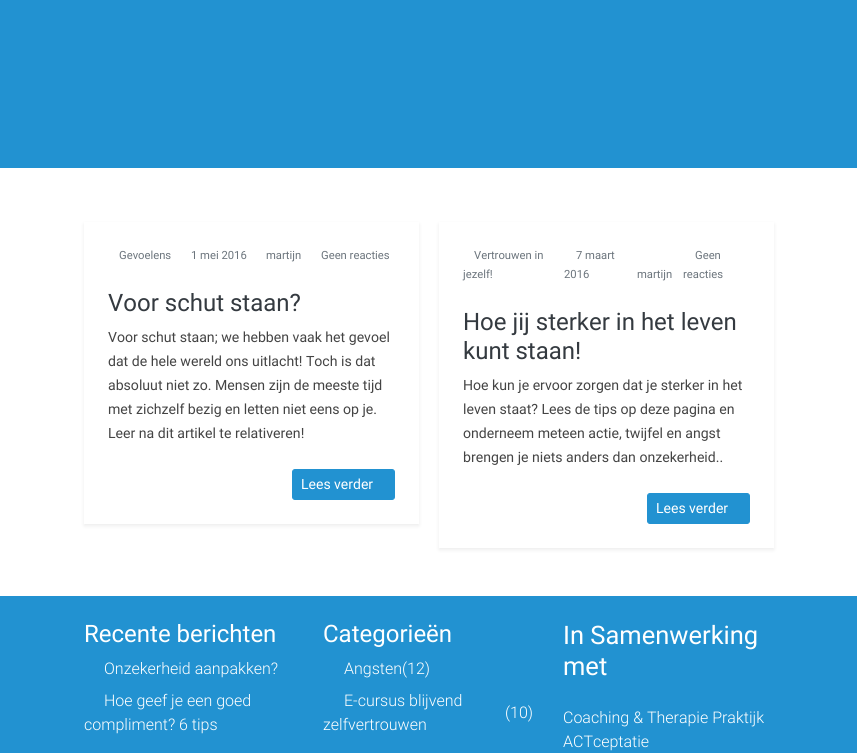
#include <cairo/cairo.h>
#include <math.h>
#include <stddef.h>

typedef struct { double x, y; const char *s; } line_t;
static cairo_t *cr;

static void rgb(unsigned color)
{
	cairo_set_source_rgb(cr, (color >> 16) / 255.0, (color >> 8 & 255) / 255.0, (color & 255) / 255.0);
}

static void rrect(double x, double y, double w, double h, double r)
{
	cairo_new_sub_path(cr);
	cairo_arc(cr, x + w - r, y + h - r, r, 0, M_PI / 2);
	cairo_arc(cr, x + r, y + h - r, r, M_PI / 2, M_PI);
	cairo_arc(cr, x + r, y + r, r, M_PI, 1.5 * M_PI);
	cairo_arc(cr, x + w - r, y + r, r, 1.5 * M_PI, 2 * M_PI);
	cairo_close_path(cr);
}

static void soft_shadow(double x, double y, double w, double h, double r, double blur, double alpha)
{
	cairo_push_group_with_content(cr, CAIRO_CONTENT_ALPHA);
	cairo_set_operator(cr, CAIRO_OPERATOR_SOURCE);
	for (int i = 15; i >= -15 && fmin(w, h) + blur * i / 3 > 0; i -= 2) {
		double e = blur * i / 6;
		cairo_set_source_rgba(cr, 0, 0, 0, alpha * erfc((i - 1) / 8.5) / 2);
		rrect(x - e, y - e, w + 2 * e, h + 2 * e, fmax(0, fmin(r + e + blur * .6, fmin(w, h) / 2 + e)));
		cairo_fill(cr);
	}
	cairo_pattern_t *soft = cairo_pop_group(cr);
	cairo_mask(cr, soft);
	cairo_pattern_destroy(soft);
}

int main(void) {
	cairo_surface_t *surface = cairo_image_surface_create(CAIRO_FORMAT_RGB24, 857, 753);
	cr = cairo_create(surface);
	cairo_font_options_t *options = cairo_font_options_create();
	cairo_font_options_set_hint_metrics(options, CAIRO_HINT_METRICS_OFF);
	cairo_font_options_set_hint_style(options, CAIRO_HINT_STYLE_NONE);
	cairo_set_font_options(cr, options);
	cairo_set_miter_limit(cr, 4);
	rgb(0xffffff);
	cairo_paint(cr);
	rgb(0x2292d1);
	cairo_rectangle(cr, 0, 0, 857, 168);
	cairo_fill(cr);
	cairo_save(cr);
	cairo_set_fill_rule(cr, CAIRO_FILL_RULE_EVEN_ODD);
	cairo_new_path(cr);
	cairo_move_to(cr, 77, 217);
	cairo_line_to(cr, 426, 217);
	cairo_line_to(cr, 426, 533);
	cairo_line_to(cr, 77, 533);
	cairo_close_path(cr);
	cairo_move_to(cr, 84, 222);
	cairo_line_to(cr, 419, 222);
	cairo_line_to(cr, 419, 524);
	cairo_line_to(cr, 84, 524);
	cairo_close_path(cr);
	cairo_clip(cr);
	rgb(0x000000);
	soft_shadow(84, 224, 335, 302, 0, 2, 0.07);
	cairo_restore(cr);
	rrect(292.5, 469.5, 102, 30, 2.5);
	cairo_fill_preserve(cr);
	cairo_set_line_width(cr, 1);
	cairo_stroke(cr);
	cairo_save(cr);
	cairo_set_fill_rule(cr, CAIRO_FILL_RULE_EVEN_ODD);
	cairo_new_path(cr);
	cairo_move_to(cr, 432, 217);
	cairo_line_to(cr, 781, 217);
	cairo_line_to(cr, 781, 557);
	cairo_line_to(cr, 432, 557);
	cairo_close_path(cr);
	cairo_move_to(cr, 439, 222);
	cairo_line_to(cr, 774, 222);
	cairo_line_to(cr, 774, 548);
	cairo_line_to(cr, 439, 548);
	cairo_close_path(cr);
	cairo_clip(cr);
	rgb(0x000000);
	soft_shadow(439, 224, 335, 326, 0, 2, 0.07);
	cairo_restore(cr);
	rrect(647.5, 493.5, 102, 30, 2.5);
	cairo_fill_preserve(cr);
	cairo_stroke(cr);
	cairo_rectangle(cr, 0, 596, 857, 157);
	cairo_fill(cr);
	cairo_select_font_face(cr, "Roboto", CAIRO_FONT_SLANT_NORMAL, CAIRO_FONT_WEIGHT_NORMAL);
	cairo_set_font_size(cr, 11.25);
	rgb(0x6c757d);
	{
		static const line_t items[] = {
			{119, 259, "Gevoelens"},
			{191, 259, "1 mei 2016"},
			{266, 259, "martijn"},
			{321, 259, "Geen reacties"},
		};
		for (size_t i = 0; i < sizeof items / sizeof *items; i++) {
			cairo_move_to(cr, items[i].x, items[i].y);
			cairo_show_text(cr, items[i].s);
		}
	}
	cairo_set_font_size(cr, 24);
	rgb(0x343a40);
	cairo_move_to(cr, 108, 311);
	cairo_show_text(cr, "Voor schut staan?");
	cairo_set_font_size(cr, 14.1);
	rgb(0x444444);
	{
		static const line_t items[] = {
			{108, 342, "Voor schut staan; we hebben vaak het gevoel"},
			{108, 366, "dat de hele wereld ons uitlacht! Toch is dat"},
			{108, 390, "absoluut niet zo. Mensen zijn de meeste tijd"},
			{108, 414, "met zichzelf bezig en letten niet eens op je."},
			{108, 438, "Leer na dit artikel te relativeren!"},
		};
		for (size_t i = 0; i < sizeof items / sizeof *items; i++) {
			cairo_move_to(cr, items[i].x, items[i].y);
			cairo_show_text(cr, items[i].s);
		}
	}
	cairo_set_font_size(cr, 14);
	rgb(0xffffff);
	cairo_move_to(cr, 301, 489);
	cairo_show_text(cr, "Lees verder");
	cairo_set_font_size(cr, 11.25);
	rgb(0x6c757d);
	{
		static const line_t items[] = {
			{474, 259, "Vertrouwen in"},
			{463, 278, "jezelf!"},
			{576, 259, "7 maart"},
			{564, 278, "2016"},
			{637, 278, "martijn"},
			{695, 259, "Geen"},
			{683, 278, "reacties"},
		};
		for (size_t i = 0; i < sizeof items / sizeof *items; i++) {
			cairo_move_to(cr, items[i].x, items[i].y);
			cairo_show_text(cr, items[i].s);
		}
	}
	cairo_set_font_size(cr, 24);
	rgb(0x343a40);
	cairo_move_to(cr, 463, 330);
	cairo_show_text(cr, "Hoe jij sterker in het leven");
	cairo_move_to(cr, 463, 359);
	cairo_show_text(cr, "kunt staan!");
	cairo_set_font_size(cr, 14.1);
	rgb(0x444444);
	{
		static const line_t items[] = {
			{463, 390, "Hoe kun je ervoor zorgen dat je sterker in het"},
			{463, 414, "leven staat? Lees de tips op deze pagina en"},
			{463, 438, "onderneem meteen actie, twijfel en angst"},
			{463, 462, "brengen je niets anders dan onzekerheid.."},
		};
		for (size_t i = 0; i < sizeof items / sizeof *items; i++) {
			cairo_move_to(cr, items[i].x, items[i].y);
			cairo_show_text(cr, items[i].s);
		}
	}
	cairo_set_font_size(cr, 14);
	rgb(0xffffff);
	cairo_move_to(cr, 656, 513);
	cairo_show_text(cr, "Lees verder");
	cairo_set_font_size(cr, 24);
	cairo_move_to(cr, 84, 642);
	cairo_show_text(cr, "Recente berichten");
	cairo_select_font_face(cr, "Roboto Light", CAIRO_FONT_SLANT_NORMAL, CAIRO_FONT_WEIGHT_NORMAL);
	cairo_set_font_size(cr, 16);
	{
		static const line_t items[] = {
			{104, 674, "Onzekerheid aanpakken?"},
			{104, 706, "Hoe geef je een goed"},
			{84, 730, "compliment? 6 tips"},
		};
		for (size_t i = 0; i < sizeof items / sizeof *items; i++) {
			cairo_move_to(cr, items[i].x, items[i].y);
			cairo_show_text(cr, items[i].s);
		}
	}
	cairo_select_font_face(cr, "Roboto", CAIRO_FONT_SLANT_NORMAL, CAIRO_FONT_WEIGHT_NORMAL);
	cairo_set_font_size(cr, 24);
	cairo_move_to(cr, 323, 642);
	cairo_show_text(cr, "Categorieën");
	cairo_select_font_face(cr, "Roboto Light", CAIRO_FONT_SLANT_NORMAL, CAIRO_FONT_WEIGHT_NORMAL);
	cairo_set_font_size(cr, 16);
	{
		static const line_t items[] = {
			{344, 674, "Angsten(12)"},
			{344, 706, "E-cursus blijvend"},
			{323, 730, "zelfvertrouwen"},
			{505, 718, "(10)"},
		};
		for (size_t i = 0; i < sizeof items / sizeof *items; i++) {
			cairo_move_to(cr, items[i].x, items[i].y);
			cairo_show_text(cr, items[i].s);
		}
	}
	cairo_select_font_face(cr, "Roboto", CAIRO_FONT_SLANT_NORMAL, CAIRO_FONT_WEIGHT_NORMAL);
	cairo_set_font_size(cr, 25.5);
	cairo_move_to(cr, 563, 644);
	cairo_show_text(cr, "In Samenwerking");
	cairo_move_to(cr, 563, 675);
	cairo_show_text(cr, "met");
	cairo_select_font_face(cr, "Roboto Light", CAIRO_FONT_SLANT_NORMAL, CAIRO_FONT_WEIGHT_NORMAL);
	cairo_set_font_size(cr, 16);
	cairo_move_to(cr, 563, 723);
	cairo_show_text(cr, "Coaching & Therapie Praktijk");
	cairo_move_to(cr, 563, 747);
	cairo_show_text(cr, "ACTceptatie");
	cairo_surface_write_to_png(surface, "page.png");
	cairo_font_options_destroy(options);
	cairo_destroy(cr);
	cairo_surface_destroy(surface);
	return 0;
}
